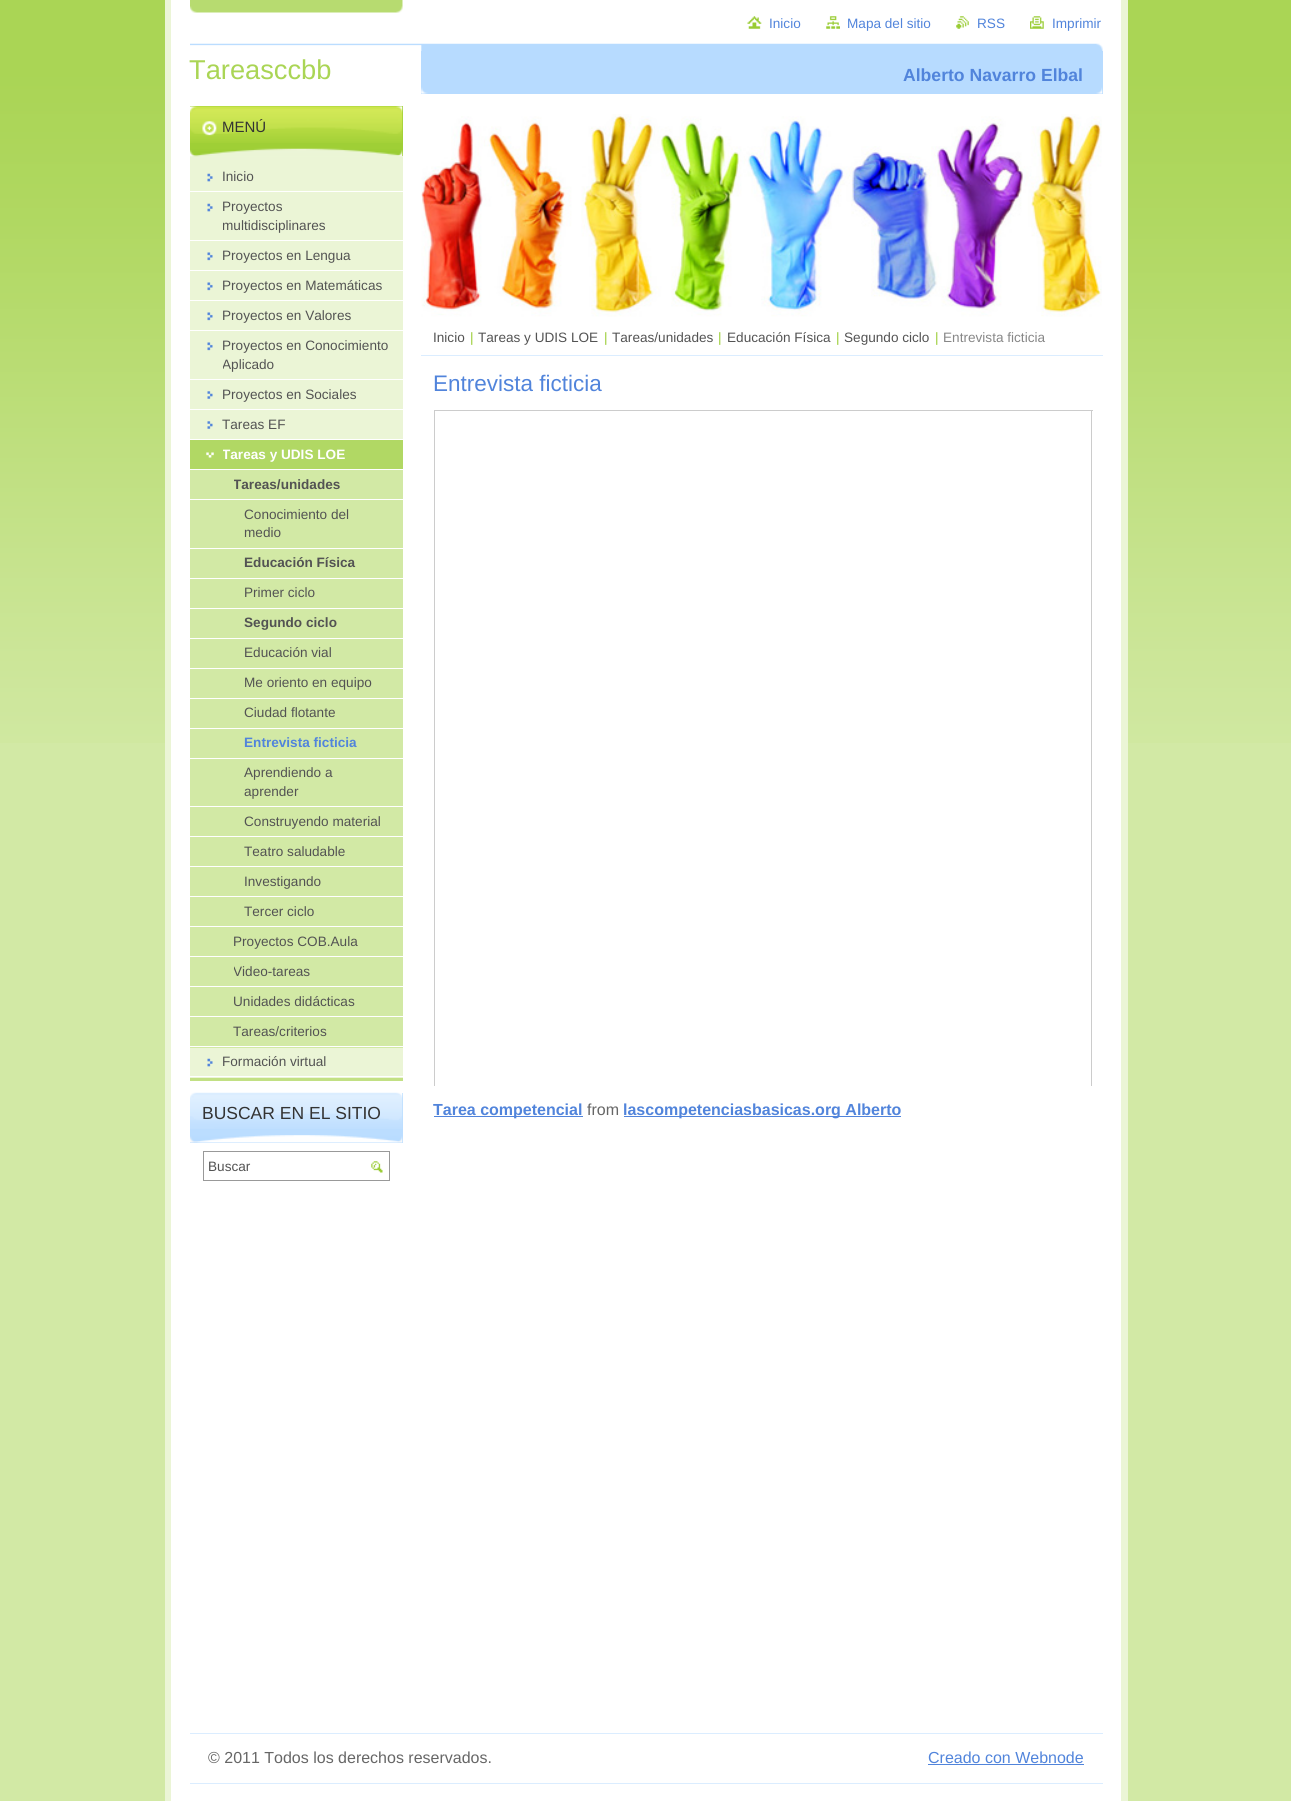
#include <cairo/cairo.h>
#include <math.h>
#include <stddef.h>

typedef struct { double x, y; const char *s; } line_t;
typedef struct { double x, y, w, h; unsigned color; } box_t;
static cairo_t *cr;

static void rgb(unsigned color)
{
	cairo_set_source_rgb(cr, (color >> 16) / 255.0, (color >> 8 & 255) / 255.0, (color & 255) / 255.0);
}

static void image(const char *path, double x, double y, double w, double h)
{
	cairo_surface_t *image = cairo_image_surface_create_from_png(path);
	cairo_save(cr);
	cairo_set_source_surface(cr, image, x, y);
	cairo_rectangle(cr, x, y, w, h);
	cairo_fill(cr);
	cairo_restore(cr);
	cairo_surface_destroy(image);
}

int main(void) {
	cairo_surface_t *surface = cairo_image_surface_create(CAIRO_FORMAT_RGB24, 1291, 1801);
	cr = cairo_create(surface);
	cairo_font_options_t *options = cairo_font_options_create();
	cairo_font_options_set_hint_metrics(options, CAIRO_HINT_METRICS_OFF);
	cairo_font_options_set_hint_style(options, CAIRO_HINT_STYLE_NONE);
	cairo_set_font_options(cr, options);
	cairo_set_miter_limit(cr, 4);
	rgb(0xd2e9a5);
	cairo_paint(cr);
	image("img/1.png", 0, 0, 1291, 743);
	rgb(0xffffff);
	cairo_rectangle(cr, 171, 0, 950, 1801);
	cairo_fill(cr);
	image("img/2.png", 190, 0, 213, 13);
	rgb(0xebf5d6);
	cairo_rectangle(cr, 1121, 0, 7, 1801);
	cairo_fill(cr);
	cairo_rectangle(cr, 165, 0, 6, 1801);
	cairo_fill(cr);
	image("img/3.png", 747, 16, 15, 13);
	image("img/4.png", 826, 16, 14, 13);
	image("img/5.png", 956, 16, 13, 13);
	image("img/6.png", 1030, 16, 14, 13);
	image("img/7.png", 190, 43, 913, 9);
	rgb(0xb7dbff);
	cairo_rectangle(cr, 421, 51, 682, 43);
	cairo_fill(cr);
	image("img/8.png", 421, 87, 682, 7);
	{
		static const box_t items[] = {
			{190, 1078, 213, 3, 0xc2e084},
			{190, 156, 213, 922, 0xebf5d6},
			{190, 106, 213, 50, 0x9fcf36},
		};
		for (size_t i = 0; i < sizeof items / sizeof *items; i++) {
			rgb(items[i].color);
			cairo_rectangle(cr, items[i].x, items[i].y, items[i].w, items[i].h);
			cairo_fill(cr);
		}
	}
	image("img/9.png", 190, 106, 213, 37);
	image("img/10.png", 190, 148, 213, 9);
	image("img/11.png", 207, 173, 6, 9);
	rgb(0xffffff);
	cairo_rectangle(cr, 190, 191, 213, 1);
	cairo_fill(cr);
	image("img/11.png", 207, 203, 6, 9);
	cairo_rectangle(cr, 190, 240, 213, 1);
	cairo_fill(cr);
	image("img/12.png", 207, 252, 6, 9);
	cairo_rectangle(cr, 190, 270, 213, 1);
	cairo_fill(cr);
	image("img/12.png", 207, 282, 6, 9);
	cairo_rectangle(cr, 190, 300, 213, 1);
	cairo_fill(cr);
	image("img/12.png", 207, 312, 6, 9);
	cairo_rectangle(cr, 190, 330, 213, 1);
	cairo_fill(cr);
	image("img/12.png", 207, 342, 6, 9);
	cairo_rectangle(cr, 190, 379, 213, 1);
	cairo_fill(cr);
	image("img/13.png", 207, 391, 6, 8);
	cairo_rectangle(cr, 190, 409, 213, 1);
	cairo_fill(cr);
	image("img/13.png", 207, 421, 6, 8);
	cairo_rectangle(cr, 190, 439, 213, 1);
	cairo_fill(cr);
	rgb(0xb1d864);
	cairo_rectangle(cr, 190, 440, 213, 29);
	cairo_fill(cr);
	image("img/14.png", 206, 452, 8, 6);
	{
		static const box_t items[] = {
			{190, 469, 213, 1, 0xffffff},
			{190, 470, 213, 578, 0xd2e9a5},
			{190, 499, 213, 1, 0xffffff},
			{190, 548, 213, 1, 0xffffff},
			{190, 578, 213, 1, 0xffffff},
			{190, 608, 213, 1, 0xffffff},
			{190, 638, 213, 1, 0xffffff},
			{190, 668, 213, 1, 0xffffff},
			{190, 698, 213, 1, 0xffffff},
			{190, 728, 213, 1, 0xffffff},
			{190, 758, 213, 1, 0xffffff},
			{190, 806, 213, 1, 0xffffff},
			{190, 836, 213, 1, 0xffffff},
			{190, 866, 213, 1, 0xffffff},
			{190, 896, 213, 1, 0xffffff},
			{190, 926, 213, 1, 0xffffff},
			{190, 956, 213, 1, 0xffffff},
			{190, 986, 213, 1, 0xffffff},
			{190, 1016, 213, 1, 0xffffff},
			{190, 1046, 213, 1, 0xffffff},
		};
		for (size_t i = 0; i < sizeof items / sizeof *items; i++) {
			rgb(items[i].color);
			cairo_rectangle(cr, items[i].x, items[i].y, items[i].w, items[i].h);
			cairo_fill(cr);
		}
	}
	image("img/11.png", 207, 1058, 6, 9);
	cairo_rectangle(cr, 190, 1076, 213, 1);
	cairo_fill(cr);
	rgb(0xbbddff);
	cairo_rectangle(cr, 190, 1093, 213, 50);
	cairo_fill(cr);
	image("img/15.png", 190, 1092, 213, 37);
	image("img/16.png", 190, 1135, 213, 8);
	cairo_rectangle(cr, 203.5, 1151.5, 186, 29);
	rgb(0x999999);
	cairo_set_line_width(cr, 1);
	cairo_stroke(cr);
	image("img/17.png", 371, 1161, 12, 12);
	image("img/18.png", 421, 114, 681, 203);
	{
		static const box_t items[] = {
			{421, 355, 682, 1, 0xdbedff},
			{434, 410, 659, 1, 0xcccccc},
			{434, 410, 1, 676, 0xcccccc},
			{1091, 410, 1, 676, 0xcccccc},
			{434, 1116, 149, 1, 0x5184db},
			{624, 1116, 277, 1, 0x5184db},
			{190, 1733, 913, 1, 0xdbedff},
			{190, 1783, 913, 1, 0xdbedff},
			{928, 1764, 156, 1, 0x5184db},
		};
		for (size_t i = 0; i < sizeof items / sizeof *items; i++) {
			rgb(items[i].color);
			cairo_rectangle(cr, items[i].x, items[i].y, items[i].w, items[i].h);
			cairo_fill(cr);
		}
	}
	cairo_select_font_face(cr, "Liberation Sans", CAIRO_FONT_SLANT_NORMAL, CAIRO_FONT_WEIGHT_NORMAL);
	cairo_set_font_size(cr, 13.6);
	{
		static const line_t items[] = {
			{769, 28, "Inicio"},
			{847, 28, "Mapa del sitio"},
			{977, 28, "RSS"},
			{1052, 28, "Imprimir"},
		};
		for (size_t i = 0; i < sizeof items / sizeof *items; i++) {
			cairo_move_to(cr, items[i].x, items[i].y);
			cairo_show_text(cr, items[i].s);
		}
	}
	cairo_set_font_size(cr, 27.25);
	rgb(0xaad555);
	cairo_move_to(cr, 189, 79);
	cairo_show_text(cr, "Tareasccbb");
	cairo_select_font_face(cr, "Liberation Sans", CAIRO_FONT_SLANT_NORMAL, CAIRO_FONT_WEIGHT_BOLD);
	cairo_set_font_size(cr, 17.6);
	rgb(0x5184db);
	cairo_move_to(cr, 903, 81);
	cairo_show_text(cr, "Alberto Navarro Elbal");
	cairo_select_font_face(cr, "Liberation Sans", CAIRO_FONT_SLANT_NORMAL, CAIRO_FONT_WEIGHT_NORMAL);
	cairo_set_font_size(cr, 15);
	rgb(0x333333);
	cairo_move_to(cr, 222, 132);
	cairo_show_text(cr, "MENÚ");
	cairo_set_font_size(cr, 13.6);
	rgb(0x535353);
	cairo_move_to(cr, 222, 181);
	cairo_show_text(cr, "Inicio");
	cairo_move_to(cr, 222, 211);
	cairo_show_text(cr, "Proyectos");
	cairo_save(cr);
	cairo_rectangle(cr, 223, 193, 167, 47);
	cairo_clip(cr);
	cairo_move_to(cr, 222, 230);
	cairo_show_text(cr, "multidisciplinares");
	cairo_restore(cr);
	{
		static const line_t items[] = {
			{222, 260, "Proyectos en Lengua"},
			{222, 290, "Proyectos en Matemáticas"},
			{222, 320, "Proyectos en Valores"},
			{222, 350, "Proyectos en Conocimiento"},
		};
		for (size_t i = 0; i < sizeof items / sizeof *items; i++) {
			cairo_move_to(cr, items[i].x, items[i].y);
			cairo_show_text(cr, items[i].s);
		}
	}
	cairo_save(cr);
	cairo_rectangle(cr, 223, 331, 167, 48);
	cairo_clip(cr);
	cairo_move_to(cr, 222, 369);
	cairo_show_text(cr, "Aplicado");
	cairo_restore(cr);
	cairo_move_to(cr, 222, 399);
	cairo_show_text(cr, "Proyectos en Sociales");
	cairo_move_to(cr, 222, 429);
	cairo_show_text(cr, "Tareas EF");
	cairo_save(cr);
	cairo_rectangle(cr, 223, 440, 167, 29);
	cairo_clip(cr);
	cairo_select_font_face(cr, "Liberation Sans", CAIRO_FONT_SLANT_NORMAL, CAIRO_FONT_WEIGHT_BOLD);
	rgb(0xffffff);
	cairo_move_to(cr, 222, 459);
	cairo_show_text(cr, "Tareas y UDIS LOE");
	cairo_restore(cr);
	cairo_save(cr);
	cairo_rectangle(cr, 234, 470, 156, 29);
	cairo_clip(cr);
	cairo_select_font_face(cr, "Liberation Sans", CAIRO_FONT_SLANT_NORMAL, CAIRO_FONT_WEIGHT_BOLD);
	cairo_move_to(cr, 233, 489);
	cairo_show_text(cr, "Tareas/unidades");
	cairo_restore(cr);
	cairo_move_to(cr, 244, 519);
	cairo_show_text(cr, "Conocimiento del");
	cairo_move_to(cr, 244, 537);
	cairo_show_text(cr, "medio");
	cairo_select_font_face(cr, "Liberation Sans", CAIRO_FONT_SLANT_NORMAL, CAIRO_FONT_WEIGHT_BOLD);
	cairo_move_to(cr, 244, 567);
	cairo_show_text(cr, "Educación Física");
	cairo_select_font_face(cr, "Liberation Sans", CAIRO_FONT_SLANT_NORMAL, CAIRO_FONT_WEIGHT_NORMAL);
	cairo_move_to(cr, 244, 597);
	cairo_show_text(cr, "Primer ciclo");
	cairo_select_font_face(cr, "Liberation Sans", CAIRO_FONT_SLANT_NORMAL, CAIRO_FONT_WEIGHT_BOLD);
	cairo_move_to(cr, 244, 627);
	cairo_show_text(cr, "Segundo ciclo");
	cairo_select_font_face(cr, "Liberation Sans", CAIRO_FONT_SLANT_NORMAL, CAIRO_FONT_WEIGHT_NORMAL);
	{
		static const line_t items[] = {
			{244, 657, "Educación vial"},
			{244, 687, "Me oriento en equipo"},
			{244, 717, "Ciudad flotante"},
		};
		for (size_t i = 0; i < sizeof items / sizeof *items; i++) {
			cairo_move_to(cr, items[i].x, items[i].y);
			cairo_show_text(cr, items[i].s);
		}
	}
	cairo_select_font_face(cr, "Liberation Sans", CAIRO_FONT_SLANT_NORMAL, CAIRO_FONT_WEIGHT_BOLD);
	rgb(0x5184db);
	cairo_move_to(cr, 244, 747);
	cairo_show_text(cr, "Entrevista ficticia");
	cairo_select_font_face(cr, "Liberation Sans", CAIRO_FONT_SLANT_NORMAL, CAIRO_FONT_WEIGHT_NORMAL);
	rgb(0x535353);
	{
		static const line_t items[] = {
			{244, 777, "Aprendiendo a"},
			{244, 796, "aprender"},
			{244, 826, "Construyendo material"},
			{244, 856, "Teatro saludable"},
			{244, 886, "Investigando"},
			{244, 916, "Tercer ciclo"},
			{233, 946, "Proyectos COB.Aula"},
		};
		for (size_t i = 0; i < sizeof items / sizeof *items; i++) {
			cairo_move_to(cr, items[i].x, items[i].y);
			cairo_show_text(cr, items[i].s);
		}
	}
	cairo_save(cr);
	cairo_rectangle(cr, 234, 958, 156, 28);
	cairo_clip(cr);
	cairo_move_to(cr, 233, 976);
	cairo_show_text(cr, "Video-tareas");
	cairo_restore(cr);
	{
		static const line_t items[] = {
			{233, 1006, "Unidades didácticas"},
			{233, 1036, "Tareas/criterios"},
			{222, 1066, "Formación virtual"},
		};
		for (size_t i = 0; i < sizeof items / sizeof *items; i++) {
			cairo_move_to(cr, items[i].x, items[i].y);
			cairo_show_text(cr, items[i].s);
		}
	}
	cairo_set_font_size(cr, 17.5);
	rgb(0x333333);
	cairo_move_to(cr, 202, 1119);
	cairo_show_text(cr, "BUSCAR EN EL SITIO");
	cairo_set_font_size(cr, 13.6);
	rgb(0x535353);
	cairo_move_to(cr, 208, 1171);
	cairo_show_text(cr, "Buscar");
	cairo_move_to(cr, 433, 342);
	cairo_show_text(cr, "Inicio");
	rgb(0x99cc33);
	cairo_move_to(cr, 470, 342);
	cairo_show_text(cr, "|");
	rgb(0x535353);
	cairo_move_to(cr, 478, 342);
	cairo_show_text(cr, "Tareas y UDIS LOE");
	rgb(0x99cc33);
	cairo_move_to(cr, 604, 342);
	cairo_show_text(cr, "|");
	rgb(0x535353);
	cairo_move_to(cr, 612, 342);
	cairo_show_text(cr, "Tareas/unidades");
	rgb(0x99cc33);
	cairo_move_to(cr, 718, 342);
	cairo_show_text(cr, "|");
	rgb(0x535353);
	cairo_move_to(cr, 727, 342);
	cairo_show_text(cr, "Educación Física");
	rgb(0x99cc33);
	cairo_move_to(cr, 836, 342);
	cairo_show_text(cr, "|");
	rgb(0x535353);
	cairo_move_to(cr, 844, 342);
	cairo_show_text(cr, "Segundo ciclo");
	rgb(0x99cc33);
	cairo_move_to(cr, 935, 342);
	cairo_show_text(cr, "|");
	rgb(0x878787);
	cairo_move_to(cr, 943, 342);
	cairo_show_text(cr, "Entrevista ficticia");
	cairo_set_font_size(cr, 22.5);
	rgb(0x5184db);
	cairo_move_to(cr, 433, 391);
	cairo_show_text(cr, "Entrevista ficticia");
	cairo_select_font_face(cr, "Liberation Sans", CAIRO_FONT_SLANT_NORMAL, CAIRO_FONT_WEIGHT_BOLD);
	cairo_set_font_size(cr, 16);
	cairo_move_to(cr, 433, 1115);
	cairo_show_text(cr, "Tarea competencial");
	cairo_select_font_face(cr, "Liberation Sans", CAIRO_FONT_SLANT_NORMAL, CAIRO_FONT_WEIGHT_NORMAL);
	rgb(0x666666);
	cairo_move_to(cr, 587, 1115);
	cairo_show_text(cr, "from");
	cairo_select_font_face(cr, "Liberation Sans", CAIRO_FONT_SLANT_NORMAL, CAIRO_FONT_WEIGHT_BOLD);
	rgb(0x5184db);
	cairo_move_to(cr, 623, 1115);
	cairo_show_text(cr, "lascompetenciasbasicas.org Alberto");
	cairo_select_font_face(cr, "Liberation Sans", CAIRO_FONT_SLANT_NORMAL, CAIRO_FONT_WEIGHT_NORMAL);
	rgb(0x666666);
	cairo_move_to(cr, 208, 1763);
	cairo_show_text(cr, "© 2011 Todos los derechos reservados.");
	rgb(0x5184db);
	cairo_move_to(cr, 928, 1763);
	cairo_show_text(cr, "Creado con Webnode");
	cairo_surface_write_to_png(surface, "page.png");
	cairo_font_options_destroy(options);
	cairo_destroy(cr);
	cairo_surface_destroy(surface);
	return 0;
}
